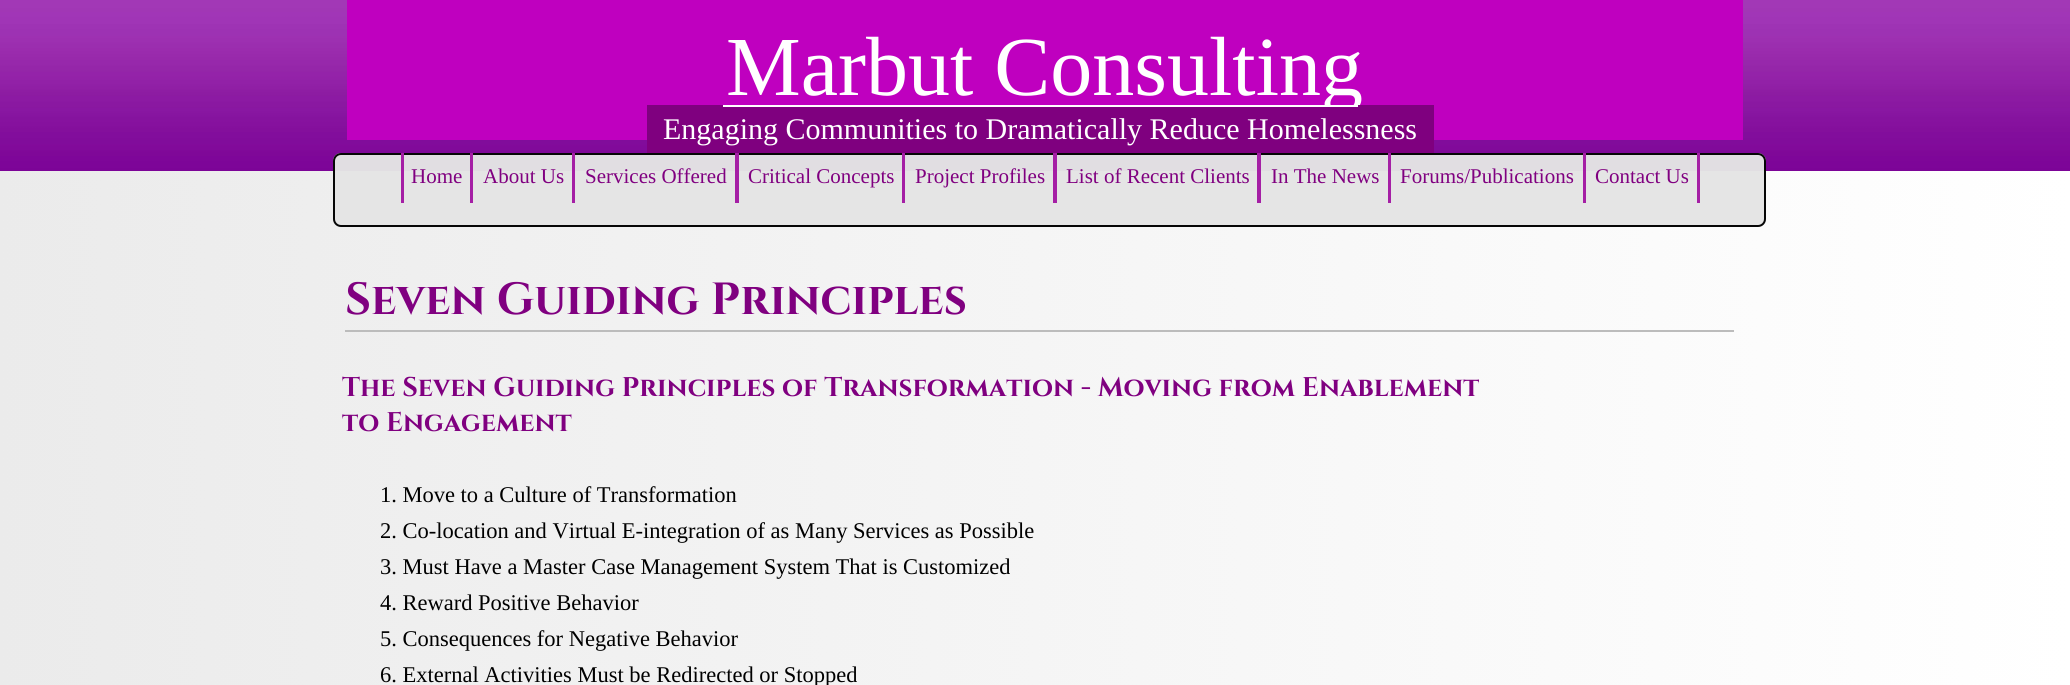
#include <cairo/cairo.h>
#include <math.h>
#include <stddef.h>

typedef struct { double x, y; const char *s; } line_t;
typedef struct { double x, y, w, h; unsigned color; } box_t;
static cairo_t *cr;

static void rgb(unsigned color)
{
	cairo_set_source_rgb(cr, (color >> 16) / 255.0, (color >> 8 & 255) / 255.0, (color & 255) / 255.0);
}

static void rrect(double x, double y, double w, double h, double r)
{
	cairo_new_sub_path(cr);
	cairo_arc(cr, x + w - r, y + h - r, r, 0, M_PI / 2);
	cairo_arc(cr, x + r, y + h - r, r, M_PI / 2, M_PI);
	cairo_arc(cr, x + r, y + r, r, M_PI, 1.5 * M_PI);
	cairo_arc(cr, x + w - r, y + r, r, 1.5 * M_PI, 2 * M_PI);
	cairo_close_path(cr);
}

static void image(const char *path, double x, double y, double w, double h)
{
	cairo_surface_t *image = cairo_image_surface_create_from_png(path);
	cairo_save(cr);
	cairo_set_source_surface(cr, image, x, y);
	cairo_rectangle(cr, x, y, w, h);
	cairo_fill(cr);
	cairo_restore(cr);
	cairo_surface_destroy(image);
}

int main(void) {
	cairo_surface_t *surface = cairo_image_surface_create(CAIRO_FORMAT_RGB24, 2070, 685);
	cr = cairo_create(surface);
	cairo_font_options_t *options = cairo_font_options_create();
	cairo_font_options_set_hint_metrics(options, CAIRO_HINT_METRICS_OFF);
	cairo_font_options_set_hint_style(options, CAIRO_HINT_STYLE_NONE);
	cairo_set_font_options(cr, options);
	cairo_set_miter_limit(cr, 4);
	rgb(0xffffff);
	cairo_paint(cr);
	image("img/1.png", 0, 0, 2070, 685);
	rgb(0xbf00bf);
	cairo_rectangle(cr, 347, 0, 1396, 140);
	cairo_fill(cr);
	cairo_set_source_rgba(cr, 0.898, 0.898, 0.898, 0.97);
	rrect(333, 153, 1433, 74, 8);
	cairo_fill(cr);
	rrect(334, 154, 1431, 72, 7);
	cairo_set_source_rgba(cr, 0, 0, 0, 0.97);
	cairo_stroke(cr);
	{
		static const box_t items[] = {
			{470, 153, 3, 50, 0xa51fa5},
			{401, 153, 3, 50, 0xa51fa5},
			{572, 153, 3, 50, 0xa51fa5},
			{735, 153, 4, 50, 0xa51fa5},
			{902, 153, 3, 50, 0xa51fa5},
			{1053, 153, 4, 50, 0xa51fa5},
			{1257, 153, 4, 50, 0xa51fa5},
			{1388, 153, 3, 50, 0xa51fa5},
			{1583, 153, 3, 50, 0xa51fa5},
			{1697, 153, 3, 50, 0xa51fa5},
			{345, 330, 1389, 2, 0xbcbcbc},
		};
		for (size_t i = 0; i < sizeof items / sizeof *items; i++) {
			rgb(items[i].color);
			cairo_rectangle(cr, items[i].x, items[i].y, items[i].w, items[i].h);
			cairo_fill(cr);
		}
	}
	cairo_select_font_face(cr, "Liberation Serif", CAIRO_FONT_SLANT_NORMAL, CAIRO_FONT_WEIGHT_NORMAL);
	cairo_set_font_size(cr, 84);
	rgb(0xffffff);
	cairo_move_to(cr, 726, 95);
	cairo_show_text(cr, "Marbut Consulting");
	rgb(0x7f007f);
	cairo_rectangle(cr, 647, 105, 787, 48);
	cairo_fill(cr);
	rgb(0xffffff);
	cairo_rectangle(cr, 723, 105, 635, 2);
	cairo_fill(cr);
	cairo_set_font_size(cr, 30);
	cairo_move_to(cr, 663, 139);
	cairo_show_text(cr, "Engaging Communities to Dramatically Reduce Homelessness");
	cairo_set_font_size(cr, 21);
	rgb(0x800080);
	{
		static const line_t items[] = {
			{411, 183, "Home"},
			{483, 183, "About Us"},
			{585, 183, "Services Offered"},
			{748, 183, "Critical Concepts"},
			{915, 183, "Project Profiles"},
			{1066, 183, "List of Recent Clients"},
			{1271, 183, "In The News"},
			{1400, 183, "Forums/Publications"},
			{1595, 183, "Contact Us"},
		};
		for (size_t i = 0; i < sizeof items / sizeof *items; i++) {
			cairo_move_to(cr, items[i].x, items[i].y);
			cairo_show_text(cr, items[i].s);
		}
	}
	cairo_select_font_face(cr, "Cinzel", CAIRO_FONT_SLANT_NORMAL, CAIRO_FONT_WEIGHT_BOLD);
	cairo_set_font_size(cr, 45);
	cairo_move_to(cr, 345, 314);
	cairo_show_text(cr, "Seven Guiding Principles");
	cairo_set_font_size(cr, 27);
	cairo_move_to(cr, 342, 396);
	cairo_show_text(cr, "The Seven Guiding Principles of Transformation - Moving from Enablement");
	cairo_move_to(cr, 342, 431);
	cairo_show_text(cr, "to Engagement");
	cairo_select_font_face(cr, "Liberation Serif", CAIRO_FONT_SLANT_NORMAL, CAIRO_FONT_WEIGHT_NORMAL);
	cairo_set_font_size(cr, 22.5);
	rgb(0x000000);
	{
		static const line_t items[] = {
			{380, 502, "1. Move to a Culture of Transformation"},
			{380, 538, "2. Co-location and Virtual E-integration of as Many Services as Possible"},
			{380, 574, "3. Must Have a Master Case Management System That is Customized"},
			{380, 610, "4. Reward Positive Behavior"},
			{380, 646, "5. Consequences for Negative Behavior"},
			{380, 682, "6. External Activities Must be Redirected or Stopped"},
		};
		for (size_t i = 0; i < sizeof items / sizeof *items; i++) {
			cairo_move_to(cr, items[i].x, items[i].y);
			cairo_show_text(cr, items[i].s);
		}
	}
	cairo_surface_write_to_png(surface, "page.png");
	cairo_font_options_destroy(options);
	cairo_destroy(cr);
	cairo_surface_destroy(surface);
	return 0;
}
